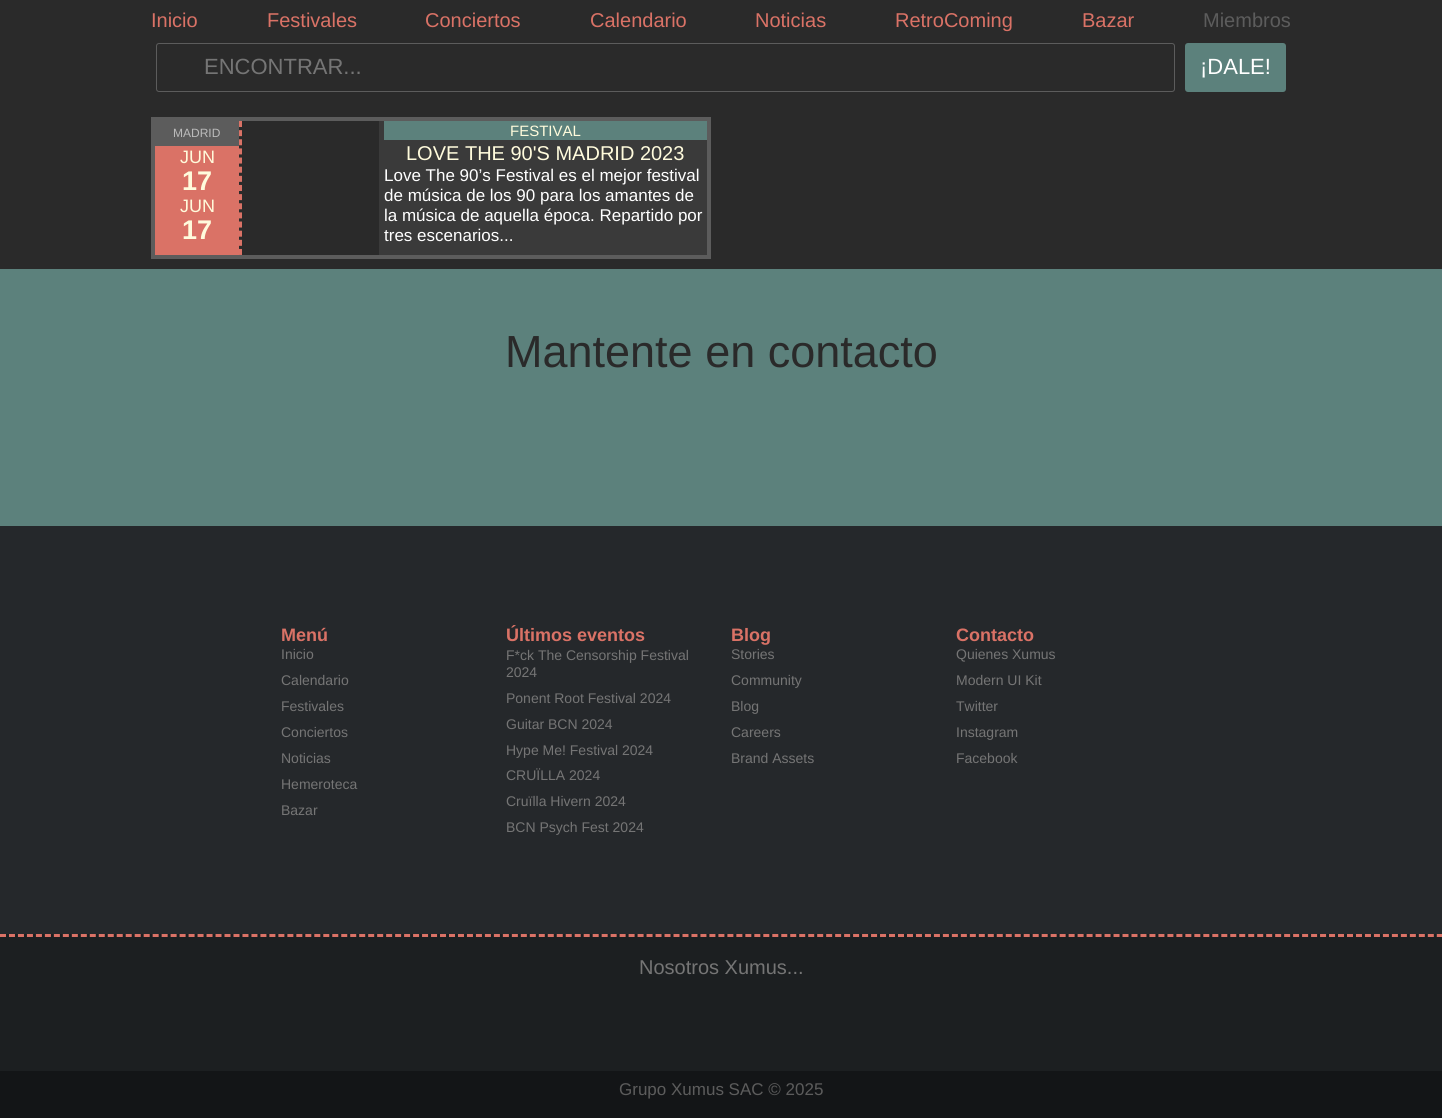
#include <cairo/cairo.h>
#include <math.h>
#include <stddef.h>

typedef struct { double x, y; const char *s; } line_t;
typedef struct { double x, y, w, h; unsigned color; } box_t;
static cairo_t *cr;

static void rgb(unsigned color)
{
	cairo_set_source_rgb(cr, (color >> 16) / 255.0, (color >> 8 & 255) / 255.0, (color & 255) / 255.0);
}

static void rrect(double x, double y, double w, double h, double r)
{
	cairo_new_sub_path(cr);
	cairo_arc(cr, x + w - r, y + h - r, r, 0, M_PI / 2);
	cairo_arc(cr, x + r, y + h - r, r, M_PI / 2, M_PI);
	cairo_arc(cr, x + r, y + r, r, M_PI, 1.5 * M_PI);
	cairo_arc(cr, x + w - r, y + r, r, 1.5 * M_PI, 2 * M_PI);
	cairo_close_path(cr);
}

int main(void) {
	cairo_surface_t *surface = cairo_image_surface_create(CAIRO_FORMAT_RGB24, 1442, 1118);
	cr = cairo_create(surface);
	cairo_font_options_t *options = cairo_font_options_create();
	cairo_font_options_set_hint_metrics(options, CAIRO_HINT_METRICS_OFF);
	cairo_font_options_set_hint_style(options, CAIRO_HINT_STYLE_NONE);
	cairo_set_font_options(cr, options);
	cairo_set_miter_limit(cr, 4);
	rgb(0x2a2a2a);
	cairo_paint(cr);
	rrect(156.5, 43.5, 1018, 48, 2.5);
	rgb(0x5c5c5c);
	cairo_set_line_width(cr, 1);
	cairo_stroke(cr);
	rgb(0x5c817c);
	rrect(1185, 43, 101, 49, 3);
	cairo_fill(cr);
	cairo_rectangle(cr, 153, 119, 556, 138);
	rgb(0x5c5c5c);
	cairo_set_line_width(cr, 4);
	cairo_stroke(cr);
	{
		static const box_t items[] = {
			{155, 244, 84, 11, 0xda7266},
			{155, 121, 84, 25, 0x5c5c5c},
			{155, 146, 84, 98, 0xda7266},
		};
		for (size_t i = 0; i < sizeof items / sizeof *items; i++) {
			rgb(items[i].color);
			cairo_rectangle(cr, items[i].x, items[i].y, items[i].w, items[i].h);
			cairo_fill(cr);
		}
	}
	cairo_new_path(cr);
	cairo_move_to(cr, 240.5, 121);
	cairo_line_to(cr, 240.5, 255);
	cairo_set_line_width(cr, 3);
	cairo_set_dash(cr, (double[]){6, 3.14}, 2, 0);
	cairo_stroke(cr);
	{
		static const box_t items[] = {
			{379, 121, 328, 134, 0x3a3a3a},
			{384, 121, 323, 19, 0x5c817c},
			{0, 269, 1442, 257, 0x5c817c},
			{0, 526, 1442, 408, 0x25282b},
			{0, 934, 1442, 137, 0x1c1f21},
		};
		for (size_t i = 0; i < sizeof items / sizeof *items; i++) {
			rgb(items[i].color);
			cairo_rectangle(cr, items[i].x, items[i].y, items[i].w, items[i].h);
			cairo_fill(cr);
		}
	}
	cairo_new_path(cr);
	cairo_move_to(cr, 0, 935.5);
	cairo_line_to(cr, 1442, 935.5);
	rgb(0xda7266);
	cairo_set_dash(cr, (double[]){6, 2.98}, 2, 0);
	cairo_stroke(cr);
	rgb(0x131517);
	cairo_rectangle(cr, 0, 1071, 1442, 47);
	cairo_fill(cr);
	cairo_select_font_face(cr, "Liberation Sans", CAIRO_FONT_SLANT_NORMAL, CAIRO_FONT_WEIGHT_NORMAL);
	cairo_set_font_size(cr, 20);
	rgb(0xda7266);
	{
		static const line_t items[] = {
			{151, 27, "Inicio"},
			{267, 27, "Festivales"},
			{425, 27, "Conciertos"},
			{590, 27, "Calendario"},
			{755, 27, "Noticias"},
			{895, 27, "RetroComing"},
			{1082, 27, "Bazar"},
		};
		for (size_t i = 0; i < sizeof items / sizeof *items; i++) {
			cairo_move_to(cr, items[i].x, items[i].y);
			cairo_show_text(cr, items[i].s);
		}
	}
	rgb(0x5c5c5c);
	cairo_move_to(cr, 1203, 27);
	cairo_show_text(cr, "Miembros");
	cairo_set_font_size(cr, 22);
	rgb(0x757575);
	cairo_move_to(cr, 204, 74);
	cairo_show_text(cr, "ENCONTRAR...");
	rgb(0xffffff);
	cairo_move_to(cr, 1200, 74);
	cairo_show_text(cr, "¡DALE!");
	cairo_set_font_size(cr, 12);
	rgb(0xbbbbbb);
	cairo_move_to(cr, 173, 137);
	cairo_show_text(cr, "MADRID");
	cairo_set_font_size(cr, 18);
	rgb(0xfffbdc);
	cairo_move_to(cr, 180, 163);
	cairo_show_text(cr, "JUN");
	cairo_select_font_face(cr, "Liberation Sans", CAIRO_FONT_SLANT_NORMAL, CAIRO_FONT_WEIGHT_BOLD);
	cairo_set_font_size(cr, 27);
	cairo_move_to(cr, 182, 190);
	cairo_show_text(cr, "17");
	cairo_select_font_face(cr, "Liberation Sans", CAIRO_FONT_SLANT_NORMAL, CAIRO_FONT_WEIGHT_NORMAL);
	cairo_set_font_size(cr, 18);
	cairo_move_to(cr, 180, 212);
	cairo_show_text(cr, "JUN");
	cairo_select_font_face(cr, "Liberation Sans", CAIRO_FONT_SLANT_NORMAL, CAIRO_FONT_WEIGHT_BOLD);
	cairo_set_font_size(cr, 27);
	cairo_move_to(cr, 182, 239);
	cairo_show_text(cr, "17");
	cairo_select_font_face(cr, "Liberation Sans", CAIRO_FONT_SLANT_NORMAL, CAIRO_FONT_WEIGHT_NORMAL);
	cairo_set_font_size(cr, 15);
	cairo_move_to(cr, 510, 136);
	cairo_show_text(cr, "FESTIVAL");
	cairo_set_font_size(cr, 20);
	cairo_move_to(cr, 406, 160);
	cairo_show_text(cr, "LOVE THE 90'S MADRID 2023");
	cairo_set_font_size(cr, 17);
	rgb(0xffffff);
	{
		static const line_t items[] = {
			{384, 181, "Love The 90’s Festival es el mejor festival"},
			{384, 201, "de música de los 90 para los amantes de"},
			{384, 221, "la música de aquella época. Repartido por"},
			{384, 241, "tres escenarios..."},
		};
		for (size_t i = 0; i < sizeof items / sizeof *items; i++) {
			cairo_move_to(cr, items[i].x, items[i].y);
			cairo_show_text(cr, items[i].s);
		}
	}
	cairo_set_font_size(cr, 45);
	rgb(0x2a2a2a);
	cairo_move_to(cr, 505, 367);
	cairo_show_text(cr, "Mantente en contacto");
	cairo_select_font_face(cr, "Liberation Sans", CAIRO_FONT_SLANT_NORMAL, CAIRO_FONT_WEIGHT_BOLD);
	cairo_set_font_size(cr, 18);
	rgb(0xda7266);
	cairo_move_to(cr, 281, 641);
	cairo_show_text(cr, "Menú");
	cairo_select_font_face(cr, "Liberation Sans", CAIRO_FONT_SLANT_NORMAL, CAIRO_FONT_WEIGHT_NORMAL);
	cairo_set_font_size(cr, 14);
	rgb(0x757575);
	{
		static const line_t items[] = {
			{281, 659, "Inicio"},
			{281, 685, "Calendario"},
			{281, 711, "Festivales"},
			{281, 737, "Conciertos"},
			{281, 763, "Noticias"},
			{281, 789, "Hemeroteca"},
			{281, 815, "Bazar"},
		};
		for (size_t i = 0; i < sizeof items / sizeof *items; i++) {
			cairo_move_to(cr, items[i].x, items[i].y);
			cairo_show_text(cr, items[i].s);
		}
	}
	cairo_select_font_face(cr, "Liberation Sans", CAIRO_FONT_SLANT_NORMAL, CAIRO_FONT_WEIGHT_BOLD);
	cairo_set_font_size(cr, 18);
	rgb(0xda7266);
	cairo_move_to(cr, 506, 641);
	cairo_show_text(cr, "Últimos eventos");
	cairo_select_font_face(cr, "Liberation Sans", CAIRO_FONT_SLANT_NORMAL, CAIRO_FONT_WEIGHT_NORMAL);
	cairo_set_font_size(cr, 14);
	rgb(0x757575);
	{
		static const line_t items[] = {
			{506, 660, "F*ck The Censorship Festival"},
			{506, 677, "2024"},
			{506, 703, "Ponent Root Festival 2024"},
			{506, 729, "Guitar BCN 2024"},
			{506, 755, "Hype Me! Festival 2024"},
			{506, 780, "CRUÏLLA 2024"},
			{506, 806, "Cruïlla Hivern 2024"},
			{506, 832, "BCN Psych Fest 2024"},
		};
		for (size_t i = 0; i < sizeof items / sizeof *items; i++) {
			cairo_move_to(cr, items[i].x, items[i].y);
			cairo_show_text(cr, items[i].s);
		}
	}
	cairo_select_font_face(cr, "Liberation Sans", CAIRO_FONT_SLANT_NORMAL, CAIRO_FONT_WEIGHT_BOLD);
	cairo_set_font_size(cr, 18);
	rgb(0xda7266);
	cairo_move_to(cr, 731, 641);
	cairo_show_text(cr, "Blog");
	cairo_select_font_face(cr, "Liberation Sans", CAIRO_FONT_SLANT_NORMAL, CAIRO_FONT_WEIGHT_NORMAL);
	cairo_set_font_size(cr, 14);
	rgb(0x757575);
	{
		static const line_t items[] = {
			{731, 659, "Stories"},
			{731, 685, "Community"},
			{731, 711, "Blog"},
			{731, 737, "Careers"},
			{731, 763, "Brand Assets"},
		};
		for (size_t i = 0; i < sizeof items / sizeof *items; i++) {
			cairo_move_to(cr, items[i].x, items[i].y);
			cairo_show_text(cr, items[i].s);
		}
	}
	cairo_select_font_face(cr, "Liberation Sans", CAIRO_FONT_SLANT_NORMAL, CAIRO_FONT_WEIGHT_BOLD);
	cairo_set_font_size(cr, 18);
	rgb(0xda7266);
	cairo_move_to(cr, 956, 641);
	cairo_show_text(cr, "Contacto");
	cairo_select_font_face(cr, "Liberation Sans", CAIRO_FONT_SLANT_NORMAL, CAIRO_FONT_WEIGHT_NORMAL);
	cairo_set_font_size(cr, 14);
	rgb(0x757575);
	{
		static const line_t items[] = {
			{956, 659, "Quienes Xumus"},
			{956, 685, "Modern UI Kit"},
			{956, 711, "Twitter"},
			{956, 737, "Instagram"},
			{956, 763, "Facebook"},
		};
		for (size_t i = 0; i < sizeof items / sizeof *items; i++) {
			cairo_move_to(cr, items[i].x, items[i].y);
			cairo_show_text(cr, items[i].s);
		}
	}
	cairo_set_font_size(cr, 20);
	cairo_move_to(cr, 639, 974);
	cairo_show_text(cr, "Nosotros Xumus...");
	cairo_set_font_size(cr, 17);
	rgb(0x5c5c5c);
	cairo_move_to(cr, 619, 1095);
	cairo_show_text(cr, "Grupo Xumus SAC © 2025");
	cairo_surface_write_to_png(surface, "page.png");
	cairo_font_options_destroy(options);
	cairo_destroy(cr);
	cairo_surface_destroy(surface);
	return 0;
}
